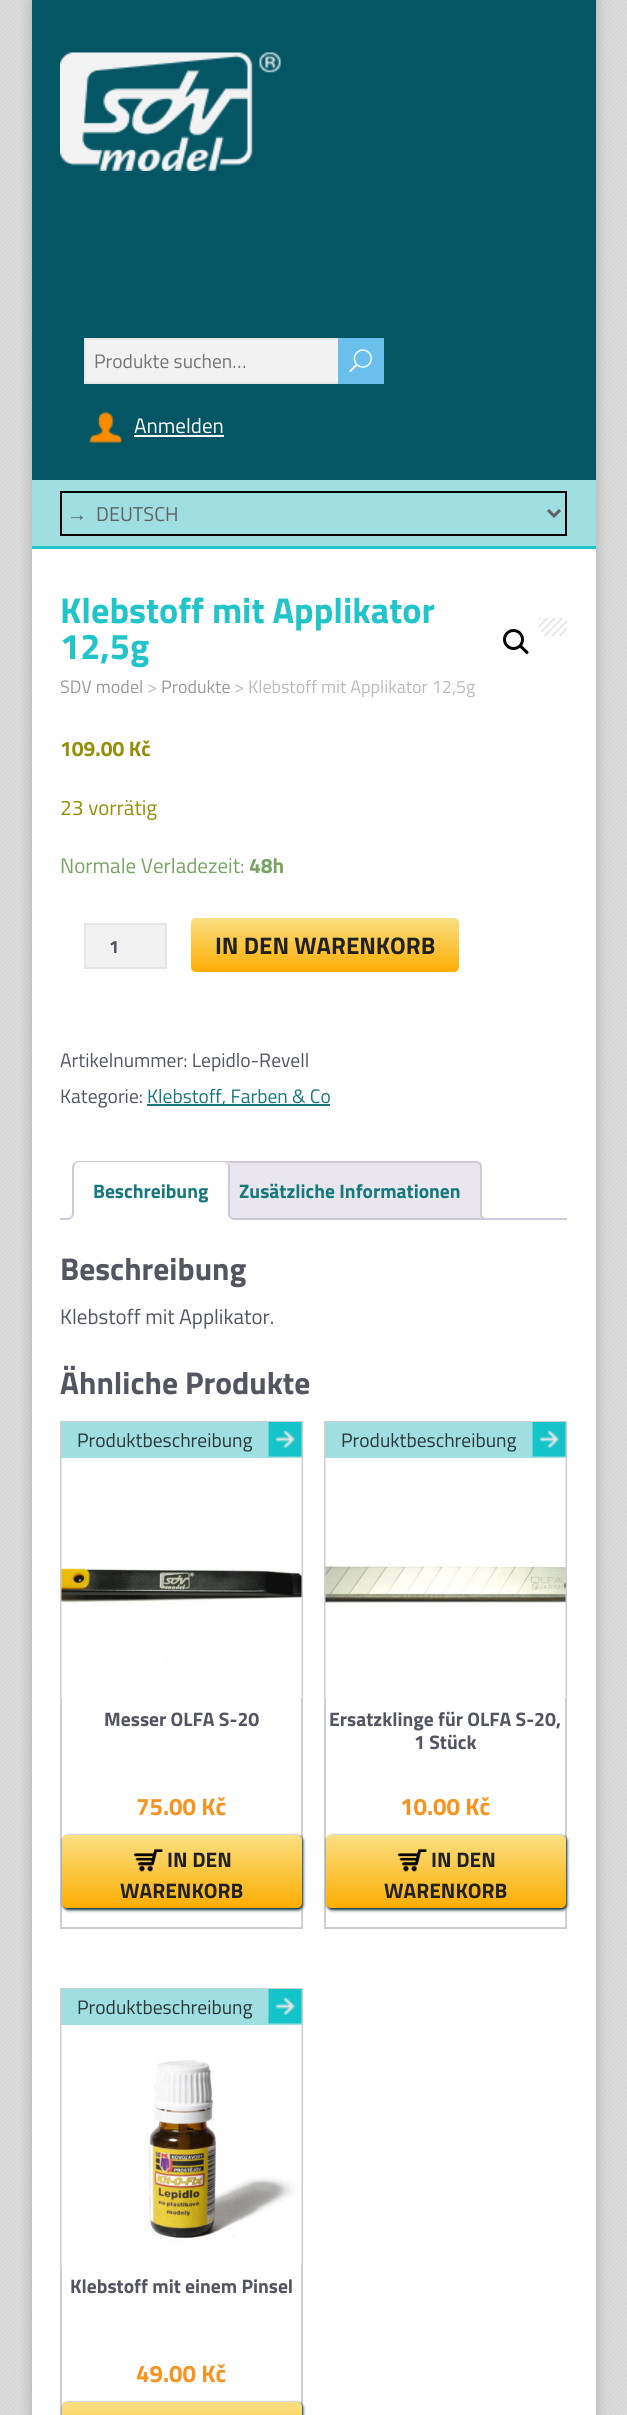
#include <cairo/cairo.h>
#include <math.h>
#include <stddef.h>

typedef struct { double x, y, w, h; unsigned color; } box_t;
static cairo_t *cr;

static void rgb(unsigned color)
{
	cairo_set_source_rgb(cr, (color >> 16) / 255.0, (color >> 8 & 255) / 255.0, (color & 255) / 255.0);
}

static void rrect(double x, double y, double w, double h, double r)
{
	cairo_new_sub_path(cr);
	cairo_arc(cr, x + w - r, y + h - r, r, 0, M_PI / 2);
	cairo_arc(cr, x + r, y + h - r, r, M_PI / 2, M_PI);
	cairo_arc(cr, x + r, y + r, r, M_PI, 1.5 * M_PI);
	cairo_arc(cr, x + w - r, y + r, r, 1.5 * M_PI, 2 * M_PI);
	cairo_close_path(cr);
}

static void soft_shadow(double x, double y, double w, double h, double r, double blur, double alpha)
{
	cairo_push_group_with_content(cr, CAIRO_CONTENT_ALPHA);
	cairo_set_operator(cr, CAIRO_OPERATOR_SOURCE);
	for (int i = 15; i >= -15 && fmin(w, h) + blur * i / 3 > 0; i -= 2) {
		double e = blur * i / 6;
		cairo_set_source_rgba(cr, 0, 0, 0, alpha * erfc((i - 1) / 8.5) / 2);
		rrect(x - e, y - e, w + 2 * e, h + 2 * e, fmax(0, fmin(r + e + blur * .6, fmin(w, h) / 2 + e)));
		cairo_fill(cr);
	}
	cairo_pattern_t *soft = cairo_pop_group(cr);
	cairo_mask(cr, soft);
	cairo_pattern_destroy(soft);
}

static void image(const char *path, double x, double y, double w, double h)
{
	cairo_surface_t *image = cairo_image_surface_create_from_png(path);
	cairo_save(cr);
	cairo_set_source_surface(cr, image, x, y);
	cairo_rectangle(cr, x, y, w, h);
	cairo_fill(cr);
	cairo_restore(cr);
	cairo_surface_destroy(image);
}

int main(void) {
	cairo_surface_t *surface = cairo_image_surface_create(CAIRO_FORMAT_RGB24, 627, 2415);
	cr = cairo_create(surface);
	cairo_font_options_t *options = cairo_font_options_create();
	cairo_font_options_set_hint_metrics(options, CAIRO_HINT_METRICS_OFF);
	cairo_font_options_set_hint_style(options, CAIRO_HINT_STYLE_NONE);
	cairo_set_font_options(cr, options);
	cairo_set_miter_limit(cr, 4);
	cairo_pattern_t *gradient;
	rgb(0xdedede);
	cairo_paint(cr);
	image("img/1.png", 0, 0, 627, 2415);
	rgb(0xaaaaaa);
	soft_shadow(32, 0, 564, 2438, 0, 7.5, 1);
	rgb(0xffffff);
	cairo_rectangle(cr, 32, 549, 564, 1866);
	cairo_fill(cr);
	rgb(0x045665);
	cairo_rectangle(cr, 32, 0, 564, 480);
	cairo_fill(cr);
	image("img/2.png", 60, 52, 221, 119);
	rgb(0xf2f2f2);
	cairo_rectangle(cr, 86, 340, 252, 42);
	cairo_fill(cr);
	cairo_rectangle(cr, 85, 339, 286, 44);
	rgb(0xe6e6e6);
	cairo_stroke(cr);
	rgb(0x6abfec);
	cairo_rectangle(cr, 338, 338, 46, 46);
	cairo_fill(cr);
	image("img/3.png", 349, 349, 23, 23);
	image("img/4.png", 89, 412, 33, 31);
	{
		static const box_t items[] = {
			{134, 435, 90, 2, 0xffffff},
			{32, 480, 564, 66, 0x9fdfe1},
			{32, 546, 564, 3, 0x20c4c9},
		};
		for (size_t i = 0; i < sizeof items / sizeof *items; i++) {
			rgb(items[i].color);
			cairo_rectangle(cr, items[i].x, items[i].y, items[i].w, items[i].h);
			cairo_fill(cr);
		}
	}
	cairo_rectangle(cr, 61, 492, 505, 43);
	rgb(0x000000);
	cairo_stroke(cr);
	cairo_new_path(cr);
	cairo_move_to(cr, 548, 510);
	cairo_line_to(cr, 554, 516);
	cairo_line_to(cr, 560, 510);
	rgb(0x626161);
	cairo_set_line_width(cr, 3);
	cairo_stroke(cr);
	image("img/5.png", 539, 618, 28, 18);
	rgb(0xffffff);
	cairo_arc(cr, 516, 642, 27, 0, 2 * M_PI);
	cairo_fill(cr);
	cairo_arc(cr, 513.5, 639.5, 9, 0, 2 * M_PI);
	rgb(0x000000);
	cairo_stroke(cr);
	cairo_new_path(cr);
	cairo_move_to(cr, 519.5, 645.5);
	cairo_curve_to(cr, 521.5, 643.5, 524, 647.5, 525, 648.5);
	cairo_curve_to(cr, 526, 649.5, 530, 652, 528, 653.5);
	cairo_curve_to(cr, 526.5, 655.5, 524, 651.5, 523, 650.5);
	cairo_curve_to(cr, 522, 649.5, 518, 647, 519.5, 645.5);
	cairo_close_path(cr);
	cairo_fill(cr);
	rgb(0xf2f2f2);
	cairo_rectangle(cr, 85, 924, 81, 44);
	cairo_fill_preserve(cr);
	rgb(0xe6e6e6);
	cairo_set_line_width(cr, 2);
	cairo_stroke(cr);
	gradient = cairo_pattern_create_linear(325, 918, 325, 972);
	cairo_pattern_add_color_stop_rgba(gradient, 0, 0.98, 0.875, 0.51, 1);
	cairo_pattern_add_color_stop_rgba(gradient, 1, 0.992, 0.682, 0.012, 1);
	cairo_set_source(cr, gradient);
	cairo_pattern_destroy(gradient);
	rrect(191, 918, 268, 54, 5);
	cairo_fill(cr);
	rgb(0x15797c);
	cairo_rectangle(cr, 147, 1104, 183, 2);
	cairo_fill(cr);
	rgb(0xe9e6ed);
	cairo_new_path(cr);
	cairo_move_to(cr, 224, 1162);
	cairo_line_to(cr, 476, 1162);
	cairo_curve_to(cr, 479, 1162, 481, 1164, 481, 1167);
	cairo_line_to(cr, 481, 1219);
	cairo_line_to(cr, 219, 1219);
	cairo_line_to(cr, 219, 1167);
	cairo_curve_to(cr, 219, 1164, 221, 1162, 224, 1162);
	cairo_close_path(cr);
	cairo_fill_preserve(cr);
	rgb(0xcfc8d8);
	cairo_stroke(cr);
	cairo_save(cr);
	cairo_rectangle(cr, 60, 1161, 507, 59);
	cairo_clip(cr);
	rgb(0xe9e6ed);
	cairo_new_path(cr);
	cairo_move_to(cr, 477, 1215);
	cairo_curve_to(cr, 477, 1221, 479, 1223, 485, 1223);
	cairo_line_to(cr, 485, 1219.5);
	cairo_curve_to(cr, 482.5, 1219, 481, 1217.5, 480, 1215);
	cairo_close_path(cr);
	cairo_fill(cr);
	cairo_restore(cr);
	cairo_set_fill_rule(cr, CAIRO_FILL_RULE_EVEN_ODD);
	cairo_new_path(cr);
	cairo_move_to(cr, 480, 1212);
	cairo_line_to(cr, 487.5, 1212);
	cairo_line_to(cr, 487.5, 1219.5);
	cairo_curve_to(cr, 483.5, 1219.5, 480, 1218, 480, 1213.5);
	cairo_close_path(cr);
	cairo_move_to(cr, 481.5, 1212);
	cairo_line_to(cr, 487.5, 1212);
	cairo_line_to(cr, 487.5, 1218);
	cairo_curve_to(cr, 484.5, 1218, 481.5, 1217, 481.5, 1213.5);
	cairo_close_path(cr);
	cairo_fill(cr);
	cairo_rectangle(cr, 60, 1218, 507, 2);
	cairo_fill(cr);
	rgb(0xffffff);
	cairo_new_path(cr);
	cairo_move_to(cr, 78, 1161);
	cairo_line_to(cr, 224, 1161);
	cairo_curve_to(cr, 227.5, 1161, 230, 1163.5, 230, 1167);
	cairo_line_to(cr, 230, 1220);
	cairo_line_to(cr, 72, 1220);
	cairo_line_to(cr, 72, 1167);
	cairo_curve_to(cr, 72, 1163.5, 74.5, 1161, 78, 1161);
	cairo_close_path(cr);
	cairo_fill(cr);
	rgb(0xcfc8d8);
	cairo_set_fill_rule(cr, CAIRO_FILL_RULE_WINDING);
	cairo_new_path(cr);
	cairo_move_to(cr, 78, 1161);
	cairo_curve_to(cr, 76, 1161, 75, 1162, 74, 1163);
	cairo_line_to(cr, 75, 1164);
	cairo_line_to(cr, 78, 1162);
	cairo_line_to(cr, 224, 1162);
	cairo_line_to(cr, 227, 1164);
	cairo_line_to(cr, 228, 1163);
	cairo_curve_to(cr, 227, 1162, 225, 1161, 224, 1161);
	cairo_close_path(cr);
	cairo_fill(cr);
	cairo_new_path(cr);
	cairo_move_to(cr, 228, 1163);
	cairo_line_to(cr, 230, 1165);
	cairo_line_to(cr, 230, 1220);
	cairo_line_to(cr, 228, 1218);
	cairo_line_to(cr, 228, 1167);
	cairo_curve_to(cr, 228, 1166, 228, 1165, 227, 1164);
	cairo_close_path(cr);
	cairo_fill(cr);
	rgb(0xffffff);
	cairo_new_path(cr);
	cairo_move_to(cr, 230, 1220);
	cairo_line_to(cr, 228, 1218);
	cairo_line_to(cr, 74, 1218);
	cairo_line_to(cr, 72, 1220);
	cairo_close_path(cr);
	cairo_fill(cr);
	rgb(0xcfc8d8);
	cairo_new_path(cr);
	cairo_move_to(cr, 72, 1220);
	cairo_line_to(cr, 74, 1218);
	cairo_line_to(cr, 74, 1167);
	cairo_line_to(cr, 75, 1164);
	cairo_line_to(cr, 74, 1163);
	cairo_curve_to(cr, 73, 1164, 72, 1166, 72, 1167);
	cairo_close_path(cr);
	cairo_fill(cr);
	cairo_save(cr);
	cairo_rectangle(cr, 60, 1161, 507, 59);
	cairo_clip(cr);
	rgb(0xffffff);
	cairo_new_path(cr);
	cairo_move_to(cr, 69, 1219.5);
	cairo_line_to(cr, 69, 1223);
	cairo_curve_to(cr, 75, 1223, 77, 1221, 77, 1215);
	cairo_line_to(cr, 73.5, 1215);
	cairo_curve_to(cr, 73, 1217, 71, 1219, 69, 1219.5);
	cairo_close_path(cr);
	cairo_fill(cr);
	cairo_restore(cr);
	cairo_set_fill_rule(cr, CAIRO_FILL_RULE_EVEN_ODD);
	cairo_new_path(cr);
	cairo_move_to(cr, 66, 1212);
	cairo_line_to(cr, 73.5, 1212);
	cairo_curve_to(cr, 73.5, 1217.5, 71.5, 1219.5, 66, 1219.5);
	cairo_close_path(cr);
	cairo_move_to(cr, 66, 1212);
	cairo_line_to(cr, 72, 1212);
	cairo_curve_to(cr, 72, 1216.5, 70.5, 1218, 66, 1218);
	cairo_close_path(cr);
	cairo_fill(cr);
	cairo_save(cr);
	cairo_set_fill_rule(cr, CAIRO_FILL_RULE_WINDING);
	cairo_rectangle(cr, 60, 1161, 507, 59);
	cairo_clip(cr);
	rgb(0xffffff);
	cairo_new_path(cr);
	cairo_move_to(cr, 225, 1215);
	cairo_curve_to(cr, 225, 1221, 227, 1223, 233, 1223);
	cairo_line_to(cr, 233, 1219.5);
	cairo_curve_to(cr, 230.5, 1219, 229, 1217.5, 228, 1215);
	cairo_close_path(cr);
	cairo_fill(cr);
	cairo_restore(cr);
	cairo_new_path(cr);
	cairo_move_to(cr, 228, 1212);
	cairo_line_to(cr, 235.5, 1212);
	cairo_line_to(cr, 235.5, 1219.5);
	cairo_curve_to(cr, 231.5, 1219.5, 228, 1218, 228, 1213.5);
	cairo_close_path(cr);
	cairo_move_to(cr, 229.5, 1212);
	cairo_line_to(cr, 235.5, 1212);
	cairo_line_to(cr, 235.5, 1218);
	cairo_curve_to(cr, 232.5, 1218, 229.5, 1217, 229.5, 1213.5);
	cairo_close_path(cr);
	cairo_fill(cr);
	cairo_rectangle(cr, 61, 1422, 241, 506);
	rgb(0xcbcfd0);
	cairo_stroke(cr);
	rgb(0x9fdfe1);
	cairo_rectangle(cr, 62, 1422, 240, 36);
	cairo_fill(cr);
	image("img/6.png", 268, 1422, 34, 35);
	image("img/7.png", 61, 1458, 241, 240);
	rgb(0x02272f);
	soft_shadow(63, 1836, 240, 74, 5, 1.5, 1);
	gradient = cairo_pattern_create_linear(182, 1835, 182, 1908);
	cairo_pattern_add_color_stop_rgba(gradient, 0, 0.98, 0.875, 0.51, 1);
	cairo_pattern_add_color_stop_rgba(gradient, 1, 0.992, 0.682, 0.012, 1);
	cairo_set_source(cr, gradient);
	cairo_pattern_destroy(gradient);
	rrect(62, 1835, 240, 73, 5);
	cairo_fill(cr);
	image("img/8.png", 133, 1848, 31, 24);
	cairo_rectangle(cr, 325, 1422, 241, 506);
	rgb(0xcbcfd0);
	cairo_stroke(cr);
	rgb(0x9fdfe1);
	cairo_rectangle(cr, 326, 1422, 240, 36);
	cairo_fill(cr);
	image("img/9.png", 532, 1422, 34, 35);
	image("img/10.png", 325, 1458, 241, 240);
	rgb(0x02272f);
	soft_shadow(327, 1836, 240, 74, 5, 1.5, 1);
	gradient = cairo_pattern_create_linear(446, 1835, 446, 1908);
	cairo_pattern_add_color_stop_rgba(gradient, 0, 0.98, 0.875, 0.51, 1);
	cairo_pattern_add_color_stop_rgba(gradient, 1, 0.992, 0.682, 0.012, 1);
	cairo_set_source(cr, gradient);
	cairo_pattern_destroy(gradient);
	rrect(326, 1835, 240, 73, 5);
	cairo_fill(cr);
	image("img/8.png", 397, 1848, 31, 24);
	cairo_rectangle(cr, 61, 1989, 241, 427);
	rgb(0xcbcfd0);
	cairo_stroke(cr);
	rgb(0x9fdfe1);
	cairo_rectangle(cr, 62, 1989, 240, 36);
	cairo_fill(cr);
	image("img/6.png", 268, 1989, 34, 35);
	image("img/11.png", 61, 2025, 241, 240);
	rgb(0x02272f);
	soft_shadow(63, 2403, 240, 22, 5, 1.5, 1);
	gradient = cairo_pattern_create_linear(182, 2402, 182, 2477);
	cairo_pattern_add_color_stop_rgba(gradient, 0, 0.98, 0.875, 0.51, 1);
	cairo_pattern_add_color_stop_rgba(gradient, 1, 0.992, 0.682, 0.012, 1);
	cairo_set_source(cr, gradient);
	cairo_pattern_destroy(gradient);
	rrect(62, 2402, 240, 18, 5);
	cairo_fill(cr);
	cairo_select_font_face(cr, "Titillium Web", CAIRO_FONT_SLANT_NORMAL, CAIRO_FONT_WEIGHT_NORMAL);
	cairo_set_font_size(cr, 19.5);
	rgb(0x757575);
	cairo_move_to(cr, 94, 368);
	cairo_show_text(cr, "Produkte suchen…");
	cairo_set_font_size(cr, 21);
	rgb(0xffffff);
	cairo_move_to(cr, 134, 433);
	cairo_show_text(cr, "Anmelden");
	cairo_select_font_face(cr, "Liberation Sans", CAIRO_FONT_SLANT_NORMAL, CAIRO_FONT_WEIGHT_NORMAL);
	cairo_set_font_size(cr, 20);
	rgb(0x626161);
	cairo_move_to(cr, 67, 521);
	cairo_show_text(cr, "→");
	cairo_select_font_face(cr, "Titillium Web", CAIRO_FONT_SLANT_NORMAL, CAIRO_FONT_WEIGHT_NORMAL);
	cairo_move_to(cr, 96, 521);
	cairo_show_text(cr, "DEUTSCH");
	cairo_select_font_face(cr, "Titillium Web", CAIRO_FONT_SLANT_NORMAL, CAIRO_FONT_WEIGHT_BOLD);
	cairo_set_font_size(cr, 36);
	rgb(0x20c4c9);
	cairo_move_to(cr, 60, 623);
	cairo_show_text(cr, "Klebstoff mit Applikator");
	cairo_move_to(cr, 60, 659);
	cairo_show_text(cr, "12,5g");
	cairo_select_font_face(cr, "Titillium Web", CAIRO_FONT_SLANT_NORMAL, CAIRO_FONT_WEIGHT_NORMAL);
	cairo_set_font_size(cr, 18);
	rgb(0x999999);
	cairo_move_to(cr, 60, 693);
	cairo_show_text(cr, "SDV model");
	rgb(0xbbbbbb);
	cairo_move_to(cr, 147, 693);
	cairo_show_text(cr, ">");
	rgb(0x999999);
	cairo_move_to(cr, 161, 693);
	cairo_show_text(cr, "Produkte");
	rgb(0xbbbbbb);
	cairo_move_to(cr, 234, 693);
	cairo_show_text(cr, "> Klebstoff mit Applikator 12,5g");
	cairo_select_font_face(cr, "Titillium Web", CAIRO_FONT_SLANT_NORMAL, CAIRO_FONT_WEIGHT_BOLD);
	cairo_set_font_size(cr, 21);
	rgb(0x958e09);
	cairo_move_to(cr, 60, 756);
	cairo_show_text(cr, "109.00 Kč");
	cairo_select_font_face(cr, "Titillium Web", CAIRO_FONT_SLANT_NORMAL, CAIRO_FONT_WEIGHT_NORMAL);
	cairo_move_to(cr, 60, 815);
	cairo_show_text(cr, "23 vorrätig");
	rgb(0x77a464);
	cairo_move_to(cr, 60, 873);
	cairo_show_text(cr, "Normale Verladezeit:");
	cairo_select_font_face(cr, "Titillium Web", CAIRO_FONT_SLANT_NORMAL, CAIRO_FONT_WEIGHT_BOLD);
	cairo_move_to(cr, 249, 873);
	cairo_show_text(cr, "48h");
	cairo_set_font_size(cr, 18);
	rgb(0x535561);
	cairo_move_to(cr, 109, 953);
	cairo_show_text(cr, "1");
	cairo_set_font_size(cr, 24);
	rgb(0x212121);
	cairo_move_to(cr, 215, 954);
	cairo_show_text(cr, "IN DEN WARENKORB");
	cairo_select_font_face(cr, "Titillium Web", CAIRO_FONT_SLANT_NORMAL, CAIRO_FONT_WEIGHT_NORMAL);
	cairo_set_font_size(cr, 19.5);
	rgb(0x535561);
	cairo_move_to(cr, 60, 1067);
	cairo_show_text(cr, "Artikelnummer: Lepidlo-Revell");
	cairo_move_to(cr, 60, 1103);
	cairo_show_text(cr, "Kategorie:");
	rgb(0x15797c);
	cairo_move_to(cr, 147, 1103);
	cairo_show_text(cr, "Klebstoff, Farben & Co");
	cairo_select_font_face(cr, "Titillium Web", CAIRO_FONT_SLANT_NORMAL, CAIRO_FONT_WEIGHT_BOLD);
	cairo_move_to(cr, 93, 1198);
	cairo_show_text(cr, "Beschreibung");
	cairo_move_to(cr, 239, 1198);
	cairo_show_text(cr, "Zusätzliche Informationen");
	cairo_set_font_size(cr, 31.5);
	rgb(0x535561);
	cairo_move_to(cr, 60, 1280);
	cairo_show_text(cr, "Beschreibung");
	cairo_select_font_face(cr, "Titillium Web", CAIRO_FONT_SLANT_NORMAL, CAIRO_FONT_WEIGHT_NORMAL);
	cairo_set_font_size(cr, 21);
	cairo_move_to(cr, 60, 1324);
	cairo_show_text(cr, "Klebstoff mit Applikator.");
	cairo_select_font_face(cr, "Titillium Web", CAIRO_FONT_SLANT_NORMAL, CAIRO_FONT_WEIGHT_BOLD);
	cairo_set_font_size(cr, 31.5);
	cairo_move_to(cr, 60, 1394);
	cairo_show_text(cr, "Ähnliche Produkte");
	cairo_select_font_face(cr, "Titillium Web", CAIRO_FONT_SLANT_NORMAL, CAIRO_FONT_WEIGHT_NORMAL);
	cairo_set_font_size(cr, 19.5);
	rgb(0x2e3738);
	cairo_move_to(cr, 77, 1447);
	cairo_show_text(cr, "Produktbeschreibung");
	cairo_select_font_face(cr, "Titillium Web", CAIRO_FONT_SLANT_NORMAL, CAIRO_FONT_WEIGHT_BOLD);
	rgb(0x535561);
	cairo_move_to(cr, 104, 1726);
	cairo_show_text(cr, "Messer OLFA S-20");
	cairo_set_font_size(cr, 24);
	rgb(0xf69422);
	cairo_move_to(cr, 136, 1815);
	cairo_show_text(cr, "75.00 Kč");
	cairo_set_font_size(cr, 21);
	rgb(0x212121);
	cairo_move_to(cr, 167, 1867);
	cairo_show_text(cr, "IN DEN");
	cairo_move_to(cr, 120, 1898);
	cairo_show_text(cr, "WARENKORB");
	cairo_select_font_face(cr, "Titillium Web", CAIRO_FONT_SLANT_NORMAL, CAIRO_FONT_WEIGHT_NORMAL);
	cairo_set_font_size(cr, 19.5);
	rgb(0x2e3738);
	cairo_move_to(cr, 341, 1447);
	cairo_show_text(cr, "Produktbeschreibung");
	cairo_select_font_face(cr, "Titillium Web", CAIRO_FONT_SLANT_NORMAL, CAIRO_FONT_WEIGHT_BOLD);
	rgb(0x535561);
	cairo_move_to(cr, 329, 1726);
	cairo_show_text(cr, "Ersatzklinge für OLFA S-20,");
	cairo_move_to(cr, 414, 1749);
	cairo_show_text(cr, "1 Stück");
	cairo_set_font_size(cr, 24);
	rgb(0xf69422);
	cairo_move_to(cr, 400, 1815);
	cairo_show_text(cr, "10.00 Kč");
	cairo_set_font_size(cr, 21);
	rgb(0x212121);
	cairo_move_to(cr, 431, 1867);
	cairo_show_text(cr, "IN DEN");
	cairo_move_to(cr, 384, 1898);
	cairo_show_text(cr, "WARENKORB");
	cairo_select_font_face(cr, "Titillium Web", CAIRO_FONT_SLANT_NORMAL, CAIRO_FONT_WEIGHT_NORMAL);
	cairo_set_font_size(cr, 19.5);
	rgb(0x2e3738);
	cairo_move_to(cr, 77, 2014);
	cairo_show_text(cr, "Produktbeschreibung");
	cairo_select_font_face(cr, "Titillium Web", CAIRO_FONT_SLANT_NORMAL, CAIRO_FONT_WEIGHT_BOLD);
	rgb(0x535561);
	cairo_move_to(cr, 70, 2293);
	cairo_show_text(cr, "Klebstoff mit einem Pinsel");
	cairo_set_font_size(cr, 24);
	rgb(0xf69422);
	cairo_move_to(cr, 136, 2382);
	cairo_show_text(cr, "49.00 Kč");
	cairo_surface_write_to_png(surface, "page.png");
	cairo_font_options_destroy(options);
	cairo_destroy(cr);
	cairo_surface_destroy(surface);
	return 0;
}
